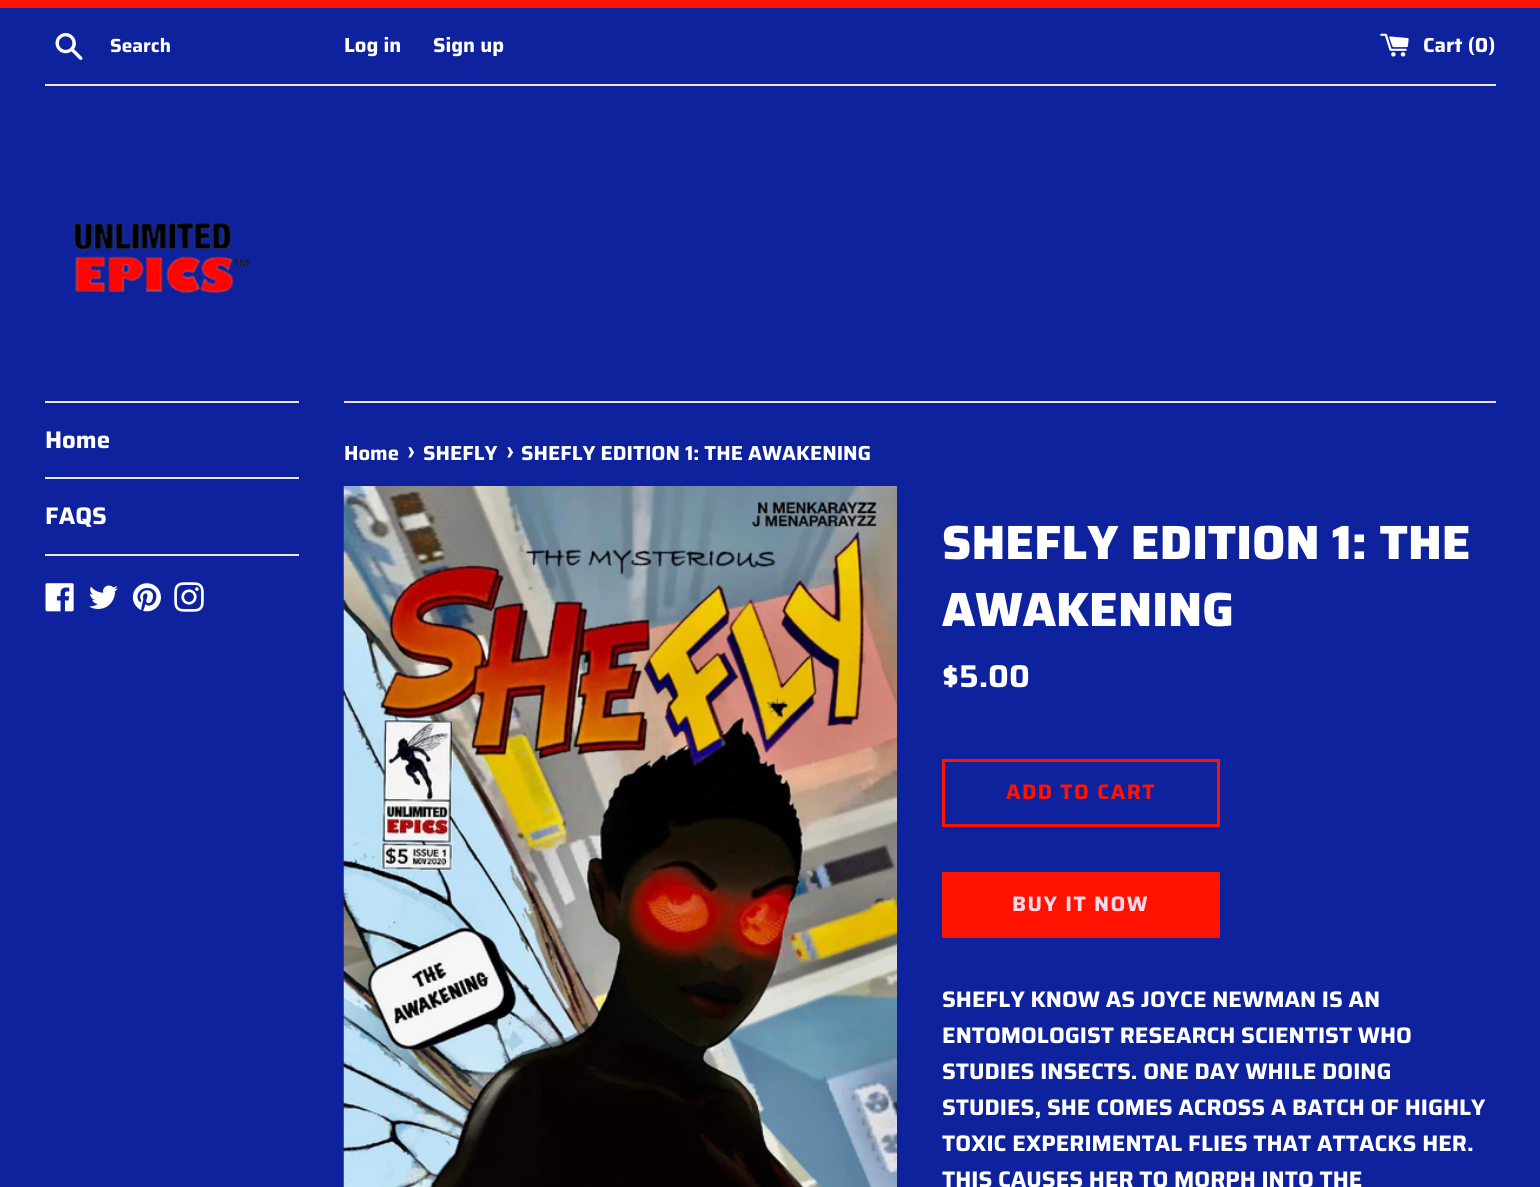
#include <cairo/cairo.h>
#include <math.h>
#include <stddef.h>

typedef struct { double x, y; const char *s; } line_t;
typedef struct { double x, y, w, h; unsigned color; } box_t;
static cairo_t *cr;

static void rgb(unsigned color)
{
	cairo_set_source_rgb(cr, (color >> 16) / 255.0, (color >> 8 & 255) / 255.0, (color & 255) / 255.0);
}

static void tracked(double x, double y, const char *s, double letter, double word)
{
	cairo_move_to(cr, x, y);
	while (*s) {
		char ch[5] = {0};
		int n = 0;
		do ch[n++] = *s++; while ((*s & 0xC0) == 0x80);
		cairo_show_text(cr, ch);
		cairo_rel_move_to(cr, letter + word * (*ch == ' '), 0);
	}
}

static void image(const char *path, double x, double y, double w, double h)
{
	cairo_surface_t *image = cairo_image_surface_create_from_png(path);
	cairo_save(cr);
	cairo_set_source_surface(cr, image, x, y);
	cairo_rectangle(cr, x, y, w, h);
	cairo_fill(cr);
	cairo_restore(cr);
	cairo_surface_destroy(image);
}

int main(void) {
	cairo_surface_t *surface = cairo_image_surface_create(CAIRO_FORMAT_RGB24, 1540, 1187);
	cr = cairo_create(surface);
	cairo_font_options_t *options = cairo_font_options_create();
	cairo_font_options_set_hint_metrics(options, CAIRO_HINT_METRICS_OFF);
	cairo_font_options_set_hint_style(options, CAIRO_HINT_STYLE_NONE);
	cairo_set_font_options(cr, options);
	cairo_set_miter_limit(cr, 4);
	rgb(0x0e229e);
	cairo_paint(cr);
	rgb(0xff1200);
	cairo_rectangle(cr, 0, 0, 1540, 8);
	cairo_fill(cr);
	image("img/1.png", 55, 33, 28, 27);
	image("img/2.png", 1380, 33, 29, 24);
	rgb(0xe8e8e8);
	cairo_rectangle(cr, 45, 84, 1451, 2);
	cairo_fill(cr);
	image("img/3.png", 73, 222, 176, 72);
	{
		static const box_t items[] = {
			{45, 401, 254, 2, 0xe8e8e8},
			{45, 477, 254, 2, 0xe8e8e8},
			{45, 554, 254, 2, 0xe8e8e8},
		};
		for (size_t i = 0; i < sizeof items / sizeof *items; i++) {
			rgb(items[i].color);
			cairo_rectangle(cr, items[i].x, items[i].y, items[i].w, items[i].h);
			cairo_fill(cr);
		}
	}
	image("img/4.png", 45, 583, 29, 29);
	image("img/5.png", 89, 585, 29, 24);
	image("img/6.png", 132, 583, 29, 29);
	image("img/7.png", 174, 582, 30, 30);
	cairo_rectangle(cr, 344, 401, 1152, 2);
	cairo_fill(cr);
	image("img/8.png", 343, 486, 554, 701);
	cairo_rectangle(cr, 943.5, 760.5, 275, 65);
	rgb(0xff1200);
	cairo_set_line_width(cr, 3);
	cairo_stroke(cr);
	cairo_rectangle(cr, 942, 872, 278, 66);
	cairo_fill(cr);
	cairo_select_font_face(cr, "Saira", CAIRO_FONT_SLANT_NORMAL, CAIRO_FONT_WEIGHT_BOLD);
	cairo_set_font_size(cr, 19);
	rgb(0xffffff);
	cairo_move_to(cr, 110, 52);
	cairo_show_text(cr, "Search");
	cairo_set_font_size(cr, 20.25);
	{
		static const line_t items[] = {
			{344, 52, "Log in"},
			{433, 52, "Sign up"},
			{1423, 52, "Cart (0)"},
		};
		for (size_t i = 0; i < sizeof items / sizeof *items; i++) {
			cairo_move_to(cr, items[i].x, items[i].y);
			cairo_show_text(cr, items[i].s);
		}
	}
	cairo_set_font_size(cr, 24);
	cairo_move_to(cr, 45, 448);
	cairo_show_text(cr, "Home");
	cairo_move_to(cr, 45, 524);
	cairo_show_text(cr, "FAQS");
	cairo_set_font_size(cr, 20.25);
	cairo_move_to(cr, 344, 460);
	cairo_show_text(cr, "Home");
	cairo_set_font_size(cr, 25);
	cairo_move_to(cr, 407, 460);
	cairo_show_text(cr, "›");
	cairo_set_font_size(cr, 20.25);
	cairo_move_to(cr, 423, 460);
	cairo_show_text(cr, "SHEFLY");
	cairo_set_font_size(cr, 25);
	cairo_move_to(cr, 506, 460);
	cairo_show_text(cr, "›");
	cairo_set_font_size(cr, 20.25);
	cairo_move_to(cr, 521, 460);
	cairo_show_text(cr, "SHEFLY EDITION 1: THE AWAKENING");
	cairo_select_font_face(cr, "Saira ExtraBold", CAIRO_FONT_SLANT_NORMAL, CAIRO_FONT_WEIGHT_NORMAL);
	cairo_set_font_size(cr, 48);
	cairo_move_to(cr, 942, 559);
	cairo_show_text(cr, "SHEFLY EDITION 1: THE");
	cairo_move_to(cr, 942, 626);
	cairo_show_text(cr, "AWAKENING");
	cairo_select_font_face(cr, "Saira", CAIRO_FONT_SLANT_NORMAL, CAIRO_FONT_WEIGHT_BOLD);
	cairo_set_font_size(cr, 31.5);
	cairo_move_to(cr, 942, 687);
	cairo_show_text(cr, "$5.00");
	cairo_set_font_size(cr, 21);
	rgb(0xff1200);
	tracked(1006, 799, "ADD TO CART", 1.5, 0);
	rgb(0xffd9eb);
	tracked(1012, 911, "BUY IT NOW", 1.5, 0);
	cairo_set_font_size(cr, 22.5);
	rgb(0xffffff);
	{
		static const line_t items[] = {
			{942, 1007, "SHEFLY KNOW AS JOYCE NEWMAN IS AN"},
			{942, 1043, "ENTOMOLOGIST RESEARCH SCIENTIST WHO"},
			{942, 1079, "STUDIES INSECTS. ONE DAY WHILE DOING"},
			{942, 1115, "STUDIES, SHE COMES ACROSS A BATCH OF HIGHLY"},
			{942, 1151, "TOXIC EXPERIMENTAL FLIES THAT ATTACKS HER."},
			{942, 1187, "THIS CAUSES HER TO MORPH INTO THE"},
		};
		for (size_t i = 0; i < sizeof items / sizeof *items; i++) {
			cairo_move_to(cr, items[i].x, items[i].y);
			cairo_show_text(cr, items[i].s);
		}
	}
	cairo_surface_write_to_png(surface, "page.png");
	cairo_font_options_destroy(options);
	cairo_destroy(cr);
	cairo_surface_destroy(surface);
	return 0;
}
